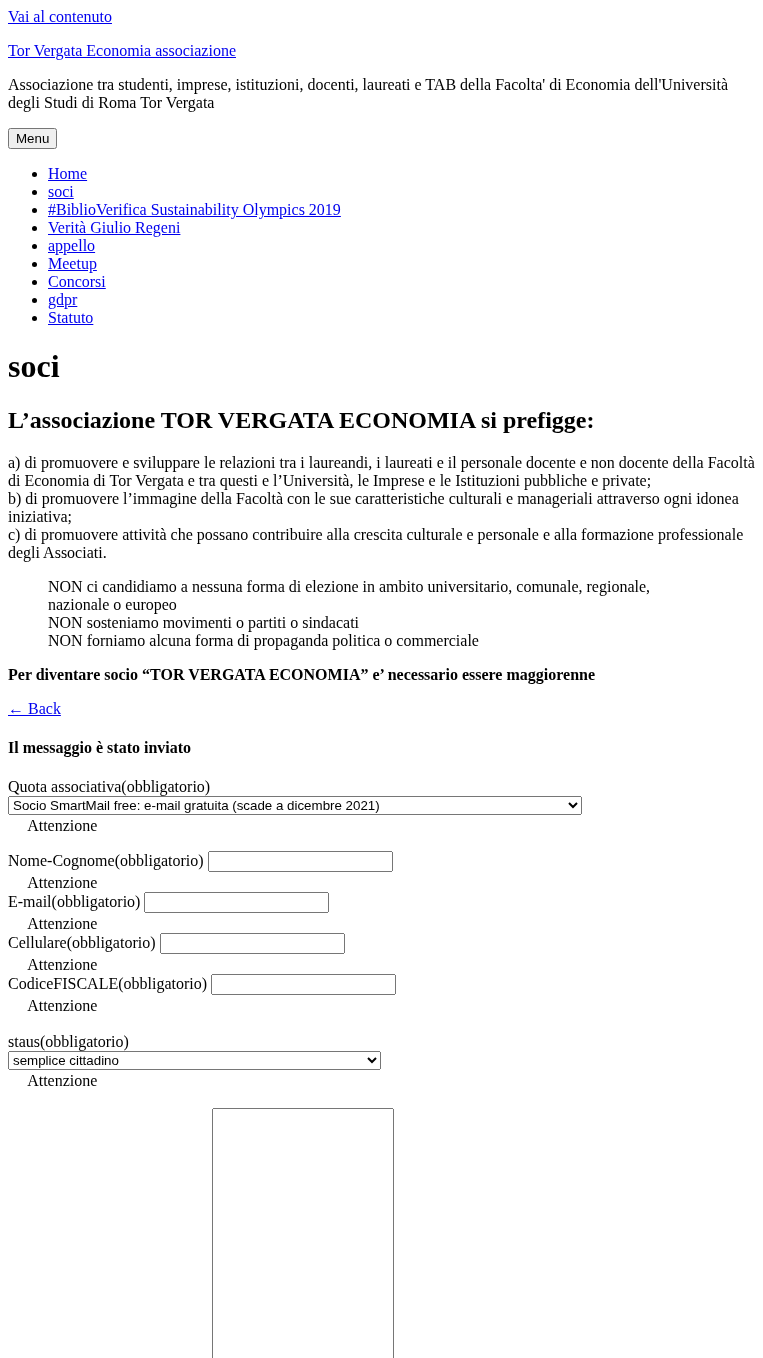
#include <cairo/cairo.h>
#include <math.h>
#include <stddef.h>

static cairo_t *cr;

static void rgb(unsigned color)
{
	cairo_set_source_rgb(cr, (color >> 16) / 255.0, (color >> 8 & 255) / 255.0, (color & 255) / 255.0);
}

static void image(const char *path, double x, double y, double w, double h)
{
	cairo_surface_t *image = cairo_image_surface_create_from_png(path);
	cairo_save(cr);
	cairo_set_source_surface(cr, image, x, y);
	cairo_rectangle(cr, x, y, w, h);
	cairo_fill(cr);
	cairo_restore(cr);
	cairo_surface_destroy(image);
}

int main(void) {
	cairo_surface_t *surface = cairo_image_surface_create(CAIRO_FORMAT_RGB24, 763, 1358);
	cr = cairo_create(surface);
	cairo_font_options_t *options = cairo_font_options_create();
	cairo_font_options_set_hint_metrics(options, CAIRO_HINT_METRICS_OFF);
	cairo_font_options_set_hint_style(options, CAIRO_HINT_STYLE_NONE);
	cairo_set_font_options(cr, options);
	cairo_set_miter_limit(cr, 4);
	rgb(0xffffff);
	cairo_paint(cr);
	image("img/1.png", 8, 10, 747, 1348);
	cairo_surface_write_to_png(surface, "page.png");
	cairo_font_options_destroy(options);
	cairo_destroy(cr);
	cairo_surface_destroy(surface);
	return 0;
}
